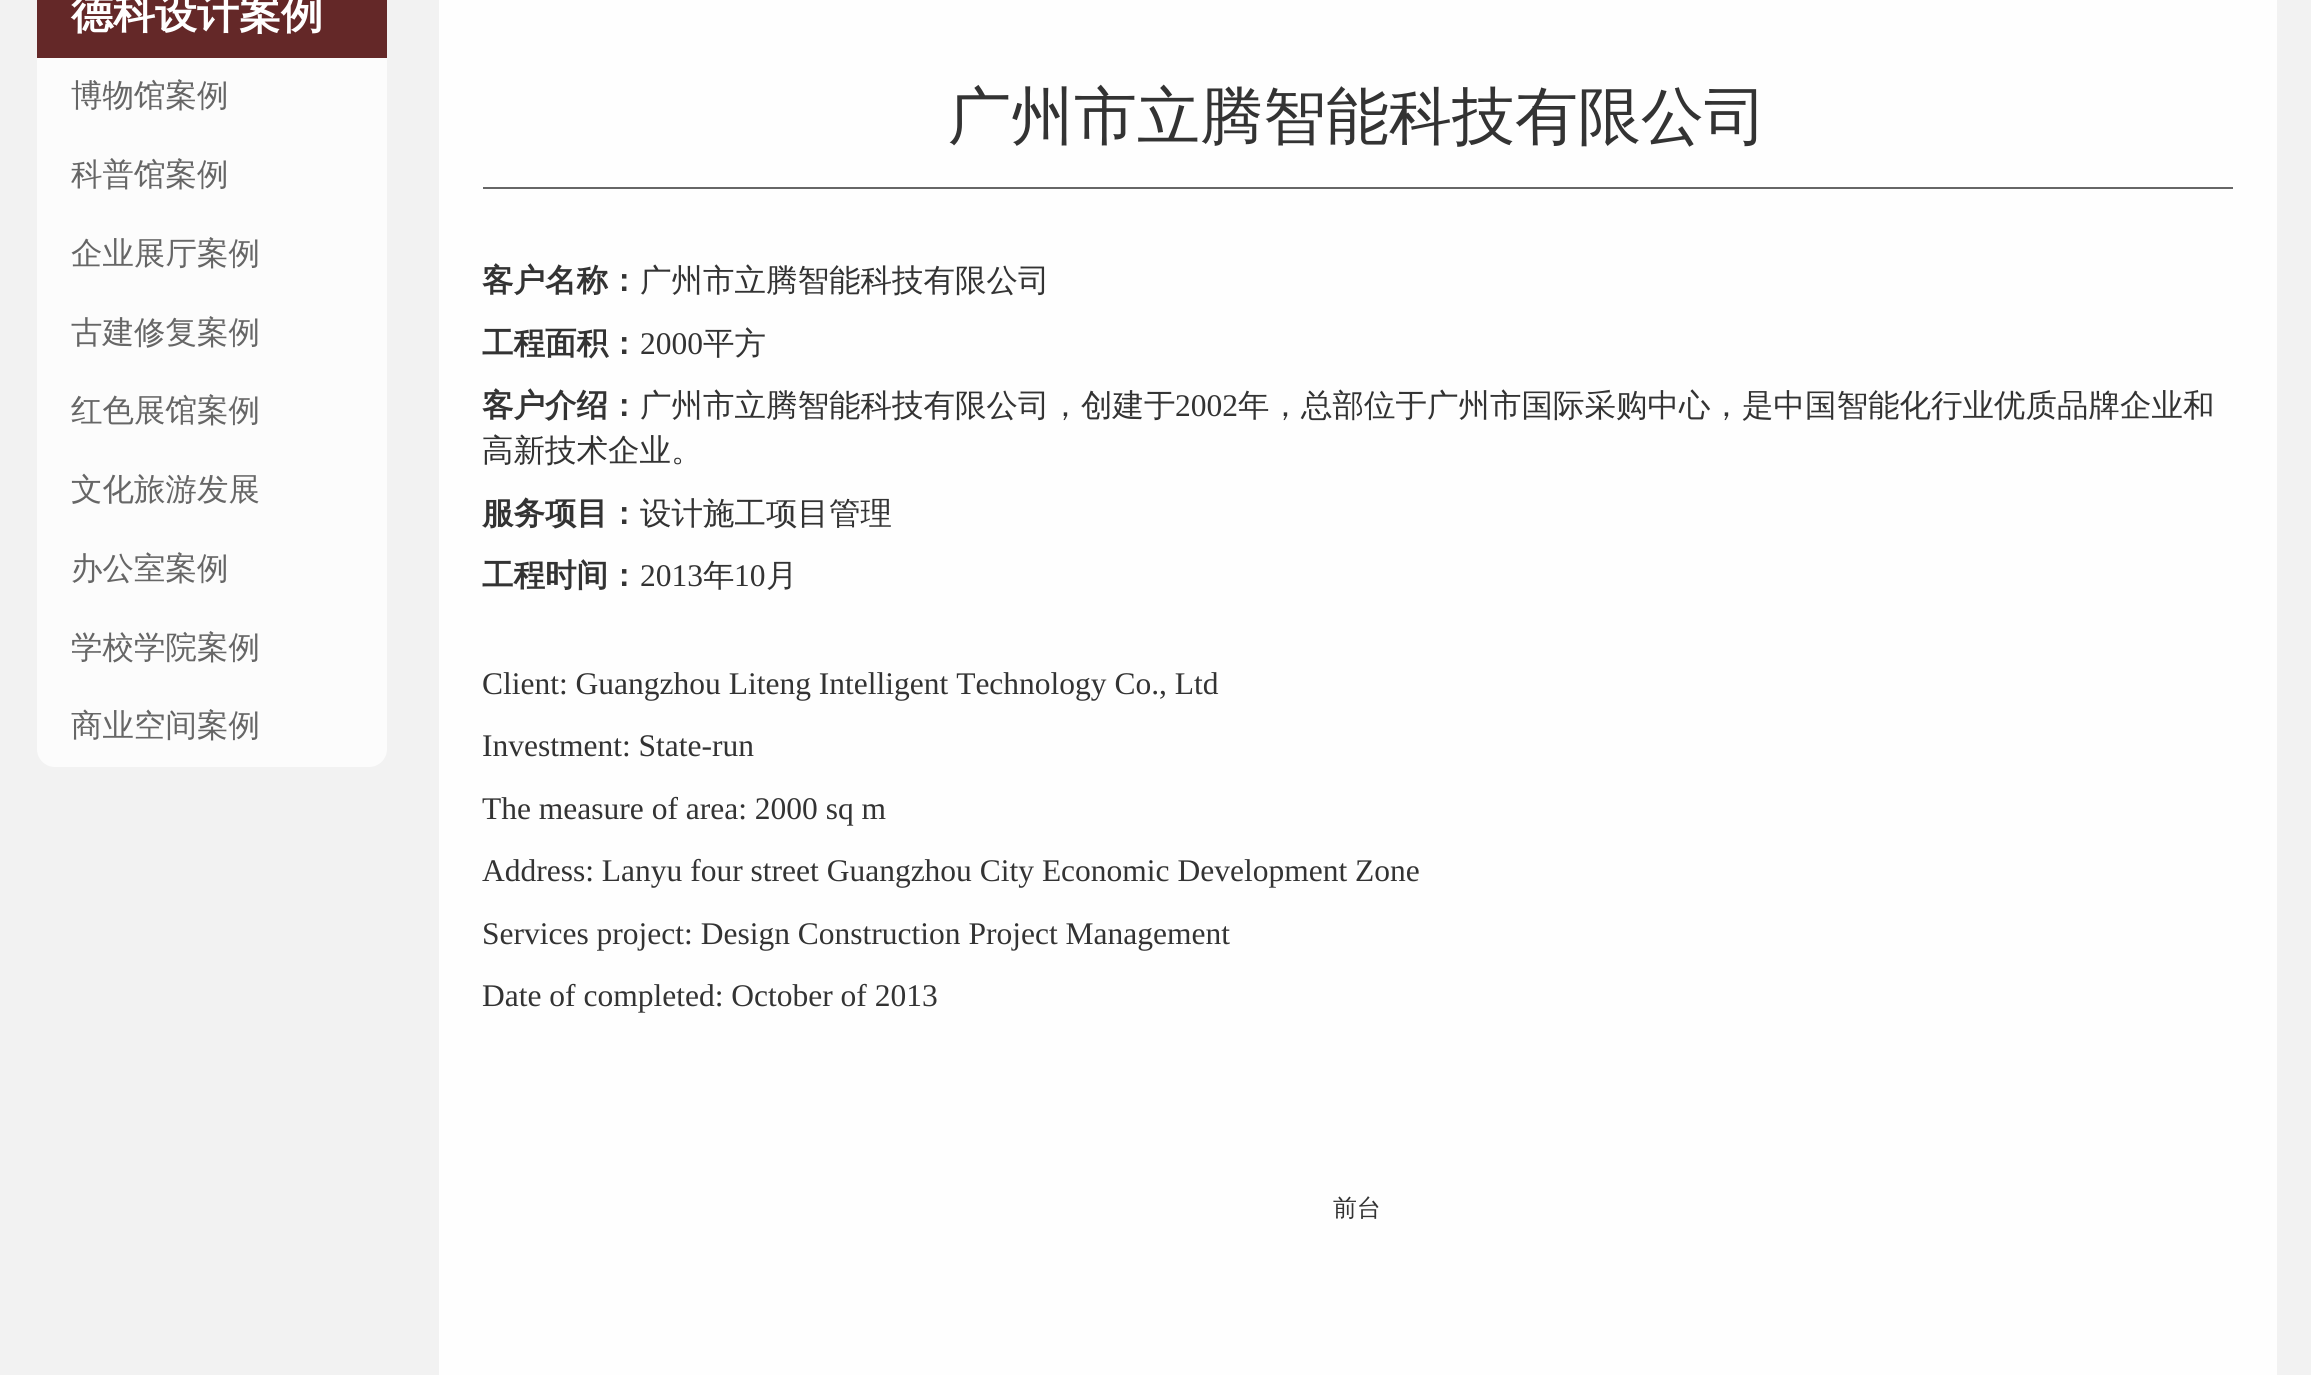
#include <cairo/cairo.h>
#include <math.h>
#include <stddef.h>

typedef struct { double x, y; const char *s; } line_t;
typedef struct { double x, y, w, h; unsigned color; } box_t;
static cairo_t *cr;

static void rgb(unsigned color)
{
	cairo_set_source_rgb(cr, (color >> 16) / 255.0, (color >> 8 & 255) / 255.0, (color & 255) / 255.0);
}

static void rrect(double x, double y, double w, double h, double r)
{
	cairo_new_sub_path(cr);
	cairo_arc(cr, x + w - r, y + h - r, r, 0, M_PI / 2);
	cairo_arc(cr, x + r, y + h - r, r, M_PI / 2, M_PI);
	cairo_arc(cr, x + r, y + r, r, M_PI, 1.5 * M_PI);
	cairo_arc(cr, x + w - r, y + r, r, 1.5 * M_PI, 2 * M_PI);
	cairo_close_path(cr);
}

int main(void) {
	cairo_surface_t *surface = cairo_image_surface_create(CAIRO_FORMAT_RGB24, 2311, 1375);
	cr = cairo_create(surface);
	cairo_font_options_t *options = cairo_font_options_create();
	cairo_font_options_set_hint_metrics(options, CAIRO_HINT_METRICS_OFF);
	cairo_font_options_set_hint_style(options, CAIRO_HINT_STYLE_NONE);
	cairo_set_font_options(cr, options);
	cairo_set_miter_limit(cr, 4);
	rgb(0xf2f2f2);
	cairo_paint(cr);
	rgb(0xfcfcfc);
	rrect(37, -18, 350, 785, 18);
	cairo_fill(cr);
	{
		static const box_t items[] = {
			{37, 0, 350, 58, 0x642828},
			{439, 0, 1838, 1375, 0xfefefe},
			{483, 187, 1750, 2, 0x666666},
		};
		for (size_t i = 0; i < sizeof items / sizeof *items; i++) {
			rgb(items[i].color);
			cairo_rectangle(cr, items[i].x, items[i].y, items[i].w, items[i].h);
			cairo_fill(cr);
		}
	}
	cairo_select_font_face(cr, "WenQuanYi Zen Hei", CAIRO_FONT_SLANT_NORMAL, CAIRO_FONT_WEIGHT_BOLD);
	cairo_set_font_size(cr, 42);
	rgb(0xffffff);
	cairo_move_to(cr, 71, 28);
	cairo_show_text(cr, "德科设计案例");
	cairo_select_font_face(cr, "WenQuanYi Zen Hei Medium", CAIRO_FONT_SLANT_NORMAL, CAIRO_FONT_WEIGHT_NORMAL);
	cairo_set_font_size(cr, 31.5);
	rgb(0x666666);
	{
		static const line_t items[] = {
			{71, 106, "博物馆案例"},
			{71, 185, "科普馆案例"},
			{71, 264, "企业展厅案例"},
			{71, 343, "古建修复案例"},
			{71, 421, "红色展馆案例"},
			{71, 500, "文化旅游发展"},
			{71, 579, "办公室案例"},
			{71, 658, "学校学院案例"},
			{71, 736, "商业空间案例"},
		};
		for (size_t i = 0; i < sizeof items / sizeof *items; i++) {
			cairo_move_to(cr, items[i].x, items[i].y);
			cairo_show_text(cr, items[i].s);
		}
	}
	cairo_set_font_size(cr, 63);
	rgb(0x333333);
	cairo_move_to(cr, 948, 138);
	cairo_show_text(cr, "广州市立腾智能科技有限公司");
	cairo_select_font_face(cr, "WenQuanYi Zen Hei", CAIRO_FONT_SLANT_NORMAL, CAIRO_FONT_WEIGHT_BOLD);
	cairo_set_font_size(cr, 31.5);
	cairo_move_to(cr, 482, 291);
	cairo_show_text(cr, "客户名称：");
	cairo_select_font_face(cr, "WenQuanYi Zen Hei Medium", CAIRO_FONT_SLANT_NORMAL, CAIRO_FONT_WEIGHT_NORMAL);
	cairo_move_to(cr, 640, 291);
	cairo_show_text(cr, "广州市立腾智能科技有限公司");
	cairo_select_font_face(cr, "WenQuanYi Zen Hei", CAIRO_FONT_SLANT_NORMAL, CAIRO_FONT_WEIGHT_BOLD);
	cairo_move_to(cr, 482, 354);
	cairo_show_text(cr, "工程面积：");
	cairo_select_font_face(cr, "Liberation Serif", CAIRO_FONT_SLANT_NORMAL, CAIRO_FONT_WEIGHT_NORMAL);
	cairo_move_to(cr, 640, 354);
	cairo_show_text(cr, "2000");
	cairo_select_font_face(cr, "WenQuanYi Zen Hei Medium", CAIRO_FONT_SLANT_NORMAL, CAIRO_FONT_WEIGHT_NORMAL);
	cairo_move_to(cr, 703, 354);
	cairo_show_text(cr, "平方");
	cairo_select_font_face(cr, "WenQuanYi Zen Hei", CAIRO_FONT_SLANT_NORMAL, CAIRO_FONT_WEIGHT_BOLD);
	cairo_move_to(cr, 482, 416);
	cairo_show_text(cr, "客户介绍：");
	cairo_select_font_face(cr, "WenQuanYi Zen Hei Medium", CAIRO_FONT_SLANT_NORMAL, CAIRO_FONT_WEIGHT_NORMAL);
	cairo_move_to(cr, 640, 416);
	cairo_show_text(cr, "广州市立腾智能科技有限公司，创建于");
	cairo_select_font_face(cr, "Liberation Serif", CAIRO_FONT_SLANT_NORMAL, CAIRO_FONT_WEIGHT_NORMAL);
	cairo_move_to(cr, 1175, 416);
	cairo_show_text(cr, "2002");
	cairo_select_font_face(cr, "WenQuanYi Zen Hei Medium", CAIRO_FONT_SLANT_NORMAL, CAIRO_FONT_WEIGHT_NORMAL);
	cairo_move_to(cr, 1238, 416);
	cairo_show_text(cr, "年，总部位于广州市国际采购中心，是中国智能化行业优质品牌企业和");
	cairo_move_to(cr, 482, 461);
	cairo_show_text(cr, "高新技术企业。");
	cairo_select_font_face(cr, "WenQuanYi Zen Hei", CAIRO_FONT_SLANT_NORMAL, CAIRO_FONT_WEIGHT_BOLD);
	cairo_move_to(cr, 482, 524);
	cairo_show_text(cr, "服务项目：");
	cairo_select_font_face(cr, "WenQuanYi Zen Hei Medium", CAIRO_FONT_SLANT_NORMAL, CAIRO_FONT_WEIGHT_NORMAL);
	cairo_move_to(cr, 640, 524);
	cairo_show_text(cr, "设计施工项目管理");
	cairo_select_font_face(cr, "WenQuanYi Zen Hei", CAIRO_FONT_SLANT_NORMAL, CAIRO_FONT_WEIGHT_BOLD);
	cairo_move_to(cr, 482, 586);
	cairo_show_text(cr, "工程时间：");
	cairo_select_font_face(cr, "Liberation Serif", CAIRO_FONT_SLANT_NORMAL, CAIRO_FONT_WEIGHT_NORMAL);
	cairo_move_to(cr, 640, 586);
	cairo_show_text(cr, "2013");
	cairo_select_font_face(cr, "WenQuanYi Zen Hei Medium", CAIRO_FONT_SLANT_NORMAL, CAIRO_FONT_WEIGHT_NORMAL);
	cairo_move_to(cr, 703, 586);
	cairo_show_text(cr, "年");
	cairo_select_font_face(cr, "Liberation Serif", CAIRO_FONT_SLANT_NORMAL, CAIRO_FONT_WEIGHT_NORMAL);
	cairo_move_to(cr, 734, 586);
	cairo_show_text(cr, "10");
	cairo_select_font_face(cr, "WenQuanYi Zen Hei Medium", CAIRO_FONT_SLANT_NORMAL, CAIRO_FONT_WEIGHT_NORMAL);
	cairo_move_to(cr, 766, 586);
	cairo_show_text(cr, "月");
	cairo_select_font_face(cr, "Liberation Serif", CAIRO_FONT_SLANT_NORMAL, CAIRO_FONT_WEIGHT_NORMAL);
	{
		static const line_t items[] = {
			{482, 694, "Client: Guangzhou Liteng Intelligent Technology Co., Ltd"},
			{482, 756, "Investment: State-run"},
			{482, 819, "The measure of area: 2000 sq m"},
			{482, 881, "Address: Lanyu four street Guangzhou City Economic Development Zone"},
			{482, 944, "Services project: Design Construction Project Management"},
			{482, 1006, "Date of completed: October of 2013"},
		};
		for (size_t i = 0; i < sizeof items / sizeof *items; i++) {
			cairo_move_to(cr, items[i].x, items[i].y);
			cairo_show_text(cr, items[i].s);
		}
	}
	cairo_select_font_face(cr, "WenQuanYi Zen Hei Medium", CAIRO_FONT_SLANT_NORMAL, CAIRO_FONT_WEIGHT_NORMAL);
	cairo_set_font_size(cr, 24);
	cairo_move_to(cr, 1333, 1216);
	cairo_show_text(cr, "前台");
	cairo_surface_write_to_png(surface, "page.png");
	cairo_font_options_destroy(options);
	cairo_destroy(cr);
	cairo_surface_destroy(surface);
	return 0;
}
